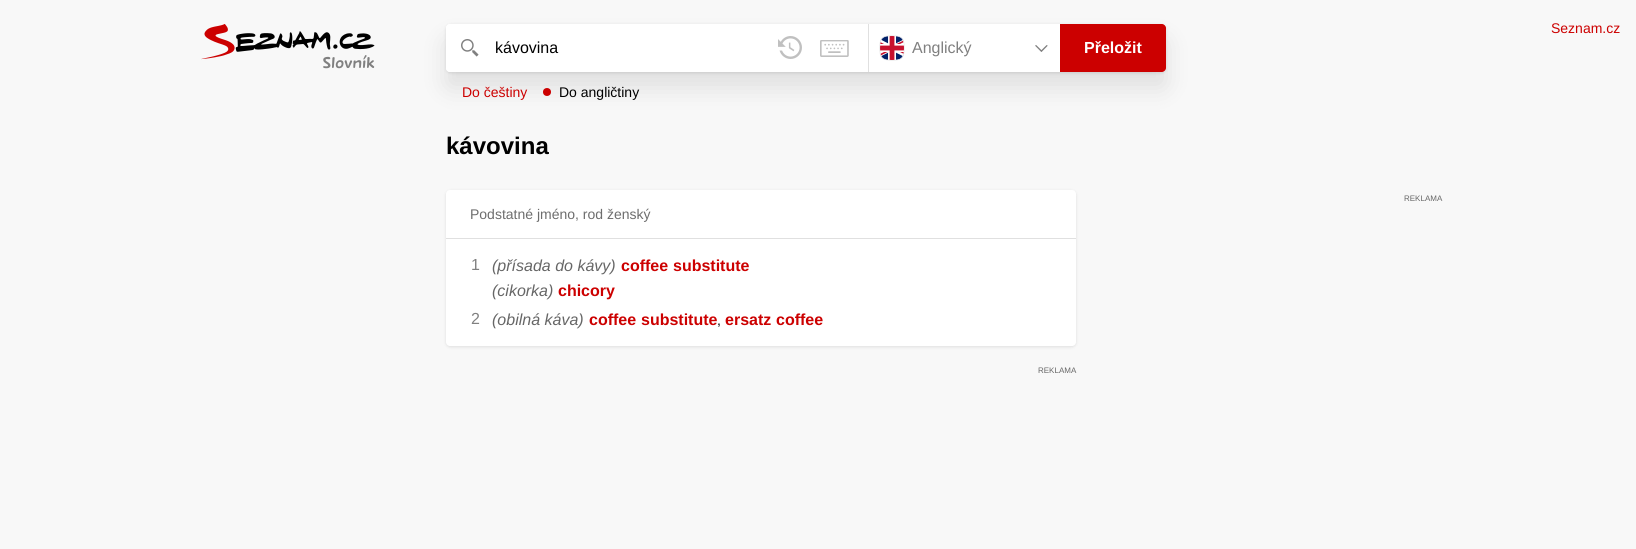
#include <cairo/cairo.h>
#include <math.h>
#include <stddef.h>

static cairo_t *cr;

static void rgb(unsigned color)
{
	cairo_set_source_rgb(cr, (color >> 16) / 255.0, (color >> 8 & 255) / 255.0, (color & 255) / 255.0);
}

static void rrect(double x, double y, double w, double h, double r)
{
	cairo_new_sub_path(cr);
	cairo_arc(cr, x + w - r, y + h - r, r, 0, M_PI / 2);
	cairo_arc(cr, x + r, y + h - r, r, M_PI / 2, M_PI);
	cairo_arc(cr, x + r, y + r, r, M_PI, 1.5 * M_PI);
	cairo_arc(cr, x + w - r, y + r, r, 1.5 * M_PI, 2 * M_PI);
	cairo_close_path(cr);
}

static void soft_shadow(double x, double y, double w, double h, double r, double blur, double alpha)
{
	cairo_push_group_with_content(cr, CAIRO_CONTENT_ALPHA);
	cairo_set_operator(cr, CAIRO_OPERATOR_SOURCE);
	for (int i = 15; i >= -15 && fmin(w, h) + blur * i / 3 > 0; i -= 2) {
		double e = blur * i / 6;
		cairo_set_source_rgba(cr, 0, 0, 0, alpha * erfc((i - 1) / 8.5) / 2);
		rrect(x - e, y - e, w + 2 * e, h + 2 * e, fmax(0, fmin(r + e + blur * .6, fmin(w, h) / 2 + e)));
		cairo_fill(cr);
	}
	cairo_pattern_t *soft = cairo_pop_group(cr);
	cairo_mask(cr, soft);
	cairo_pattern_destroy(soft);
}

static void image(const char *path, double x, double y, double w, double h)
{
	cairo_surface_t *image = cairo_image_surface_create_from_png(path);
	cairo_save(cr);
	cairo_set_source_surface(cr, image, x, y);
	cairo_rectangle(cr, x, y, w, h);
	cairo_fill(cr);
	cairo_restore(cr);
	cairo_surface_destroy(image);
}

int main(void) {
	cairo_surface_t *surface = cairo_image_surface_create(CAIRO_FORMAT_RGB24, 1636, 549);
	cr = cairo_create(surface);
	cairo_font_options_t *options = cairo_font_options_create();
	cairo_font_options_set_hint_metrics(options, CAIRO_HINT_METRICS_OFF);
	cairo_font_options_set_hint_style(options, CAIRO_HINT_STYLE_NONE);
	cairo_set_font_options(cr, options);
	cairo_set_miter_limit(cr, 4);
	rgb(0xf8f8f8);
	cairo_paint(cr);
	image("img/1.png", 201, 24, 174, 45);
	rgb(0x000000);
	soft_shadow(446, 25, 720, 48, 4, 1.5, 0.1);
	soft_shadow(446, 40, 720, 48, 4, 12, 0.1);
	rgb(0xffffff);
	rrect(446, 24, 720, 48, 4);
	cairo_fill(cr);
	rrect(446, 24, 48, 48, 4);
	cairo_fill(cr);
	image("img/2.png", 461, 39, 18, 18);
	image("img/3.png", 778, 36, 24, 23);
	image("img/4.png", 820, 40, 29, 17);
	rgb(0xe0e0e0);
	cairo_rectangle(cr, 868, 24, 1, 48);
	cairo_fill(cr);
	image("img/5.png", 879, 35, 26, 26);
	image("img/6.png", 1035, 45, 13, 7);
	rgb(0xcc0000);
	cairo_new_path(cr);
	cairo_move_to(cr, 1060, 24);
	cairo_line_to(cr, 1162, 24);
	cairo_curve_to(cr, 1164, 24, 1166, 26, 1166, 28);
	cairo_line_to(cr, 1166, 68);
	cairo_curve_to(cr, 1166, 70, 1164, 72, 1162, 72);
	cairo_line_to(cr, 1060, 72);
	cairo_close_path(cr);
	cairo_fill(cr);
	cairo_arc(cr, 547, 92, 4, 0, 2 * M_PI);
	cairo_fill(cr);
	rgb(0x000000);
	soft_shadow(446, 191, 630, 156, 4, 1.5, 0.1);
	rgb(0xffffff);
	rrect(446, 190, 630, 156, 4);
	cairo_fill(cr);
	rgb(0xe0e0e0);
	cairo_rectangle(cr, 446, 238, 630, 1);
	cairo_fill(cr);
	cairo_select_font_face(cr, "Liberation Sans", CAIRO_FONT_SLANT_NORMAL, CAIRO_FONT_WEIGHT_NORMAL);
	cairo_set_font_size(cr, 16);
	rgb(0x000000);
	cairo_move_to(cr, 495, 53);
	cairo_show_text(cr, "kávovina");
	rgb(0x808080);
	cairo_move_to(cr, 912, 53);
	cairo_show_text(cr, "Anglický");
	cairo_select_font_face(cr, "Liberation Sans", CAIRO_FONT_SLANT_NORMAL, CAIRO_FONT_WEIGHT_BOLD);
	rgb(0xffffff);
	cairo_move_to(cr, 1084, 53);
	cairo_show_text(cr, "Přeložit");
	cairo_select_font_face(cr, "Liberation Sans", CAIRO_FONT_SLANT_NORMAL, CAIRO_FONT_WEIGHT_NORMAL);
	cairo_set_font_size(cr, 14);
	rgb(0xcc0000);
	cairo_move_to(cr, 462, 97);
	cairo_show_text(cr, "Do češtiny");
	rgb(0x000000);
	cairo_move_to(cr, 559, 97);
	cairo_show_text(cr, "Do angličtiny");
	rgb(0xcc0000);
	cairo_move_to(cr, 1551, 33);
	cairo_show_text(cr, "Seznam.cz");
	cairo_select_font_face(cr, "Liberation Sans", CAIRO_FONT_SLANT_NORMAL, CAIRO_FONT_WEIGHT_BOLD);
	cairo_set_font_size(cr, 24);
	rgb(0x000000);
	cairo_move_to(cr, 446, 154);
	cairo_show_text(cr, "kávovina");
	cairo_select_font_face(cr, "Liberation Sans", CAIRO_FONT_SLANT_NORMAL, CAIRO_FONT_WEIGHT_NORMAL);
	cairo_set_font_size(cr, 8);
	rgb(0x666666);
	cairo_move_to(cr, 1404, 201);
	cairo_show_text(cr, "REKLAMA");
	cairo_set_font_size(cr, 14);
	rgb(0x6d6d6d);
	cairo_move_to(cr, 470, 219);
	cairo_show_text(cr, "Podstatné jméno, rod ženský");
	cairo_set_font_size(cr, 16);
	rgb(0x808080);
	cairo_move_to(cr, 471, 270);
	cairo_show_text(cr, "1");
	cairo_select_font_face(cr, "Liberation Sans", CAIRO_FONT_SLANT_ITALIC, CAIRO_FONT_WEIGHT_NORMAL);
	rgb(0x666666);
	cairo_move_to(cr, 492, 271);
	cairo_show_text(cr, "(přísada do kávy)");
	cairo_select_font_face(cr, "Liberation Sans", CAIRO_FONT_SLANT_NORMAL, CAIRO_FONT_WEIGHT_BOLD);
	rgb(0xcc0000);
	cairo_move_to(cr, 621, 271);
	cairo_show_text(cr, "coffee");
	cairo_move_to(cr, 673, 271);
	cairo_show_text(cr, "substitute");
	cairo_select_font_face(cr, "Liberation Sans", CAIRO_FONT_SLANT_ITALIC, CAIRO_FONT_WEIGHT_NORMAL);
	rgb(0x666666);
	cairo_move_to(cr, 492, 296);
	cairo_show_text(cr, "(cikorka)");
	cairo_select_font_face(cr, "Liberation Sans", CAIRO_FONT_SLANT_NORMAL, CAIRO_FONT_WEIGHT_BOLD);
	rgb(0xcc0000);
	cairo_move_to(cr, 558, 296);
	cairo_show_text(cr, "chicory");
	cairo_select_font_face(cr, "Liberation Sans", CAIRO_FONT_SLANT_NORMAL, CAIRO_FONT_WEIGHT_NORMAL);
	rgb(0x808080);
	cairo_move_to(cr, 471, 324);
	cairo_show_text(cr, "2");
	cairo_select_font_face(cr, "Liberation Sans", CAIRO_FONT_SLANT_ITALIC, CAIRO_FONT_WEIGHT_NORMAL);
	rgb(0x666666);
	cairo_move_to(cr, 492, 325);
	cairo_show_text(cr, "(obilná káva)");
	cairo_select_font_face(cr, "Liberation Sans", CAIRO_FONT_SLANT_NORMAL, CAIRO_FONT_WEIGHT_BOLD);
	rgb(0xcc0000);
	cairo_move_to(cr, 589, 325);
	cairo_show_text(cr, "coffee");
	cairo_move_to(cr, 641, 325);
	cairo_show_text(cr, "substitute");
	cairo_select_font_face(cr, "Liberation Sans", CAIRO_FONT_SLANT_NORMAL, CAIRO_FONT_WEIGHT_NORMAL);
	cairo_set_font_size(cr, 14);
	rgb(0x000000);
	cairo_move_to(cr, 717, 325);
	cairo_show_text(cr, ",");
	cairo_select_font_face(cr, "Liberation Sans", CAIRO_FONT_SLANT_NORMAL, CAIRO_FONT_WEIGHT_BOLD);
	cairo_set_font_size(cr, 16);
	rgb(0xcc0000);
	cairo_move_to(cr, 725, 325);
	cairo_show_text(cr, "ersatz");
	cairo_move_to(cr, 776, 325);
	cairo_show_text(cr, "coffee");
	cairo_select_font_face(cr, "Liberation Sans", CAIRO_FONT_SLANT_NORMAL, CAIRO_FONT_WEIGHT_NORMAL);
	cairo_set_font_size(cr, 8);
	rgb(0x666666);
	cairo_move_to(cr, 1038, 373);
	cairo_show_text(cr, "REKLAMA");
	cairo_surface_write_to_png(surface, "page.png");
	cairo_font_options_destroy(options);
	cairo_destroy(cr);
	cairo_surface_destroy(surface);
	return 0;
}
